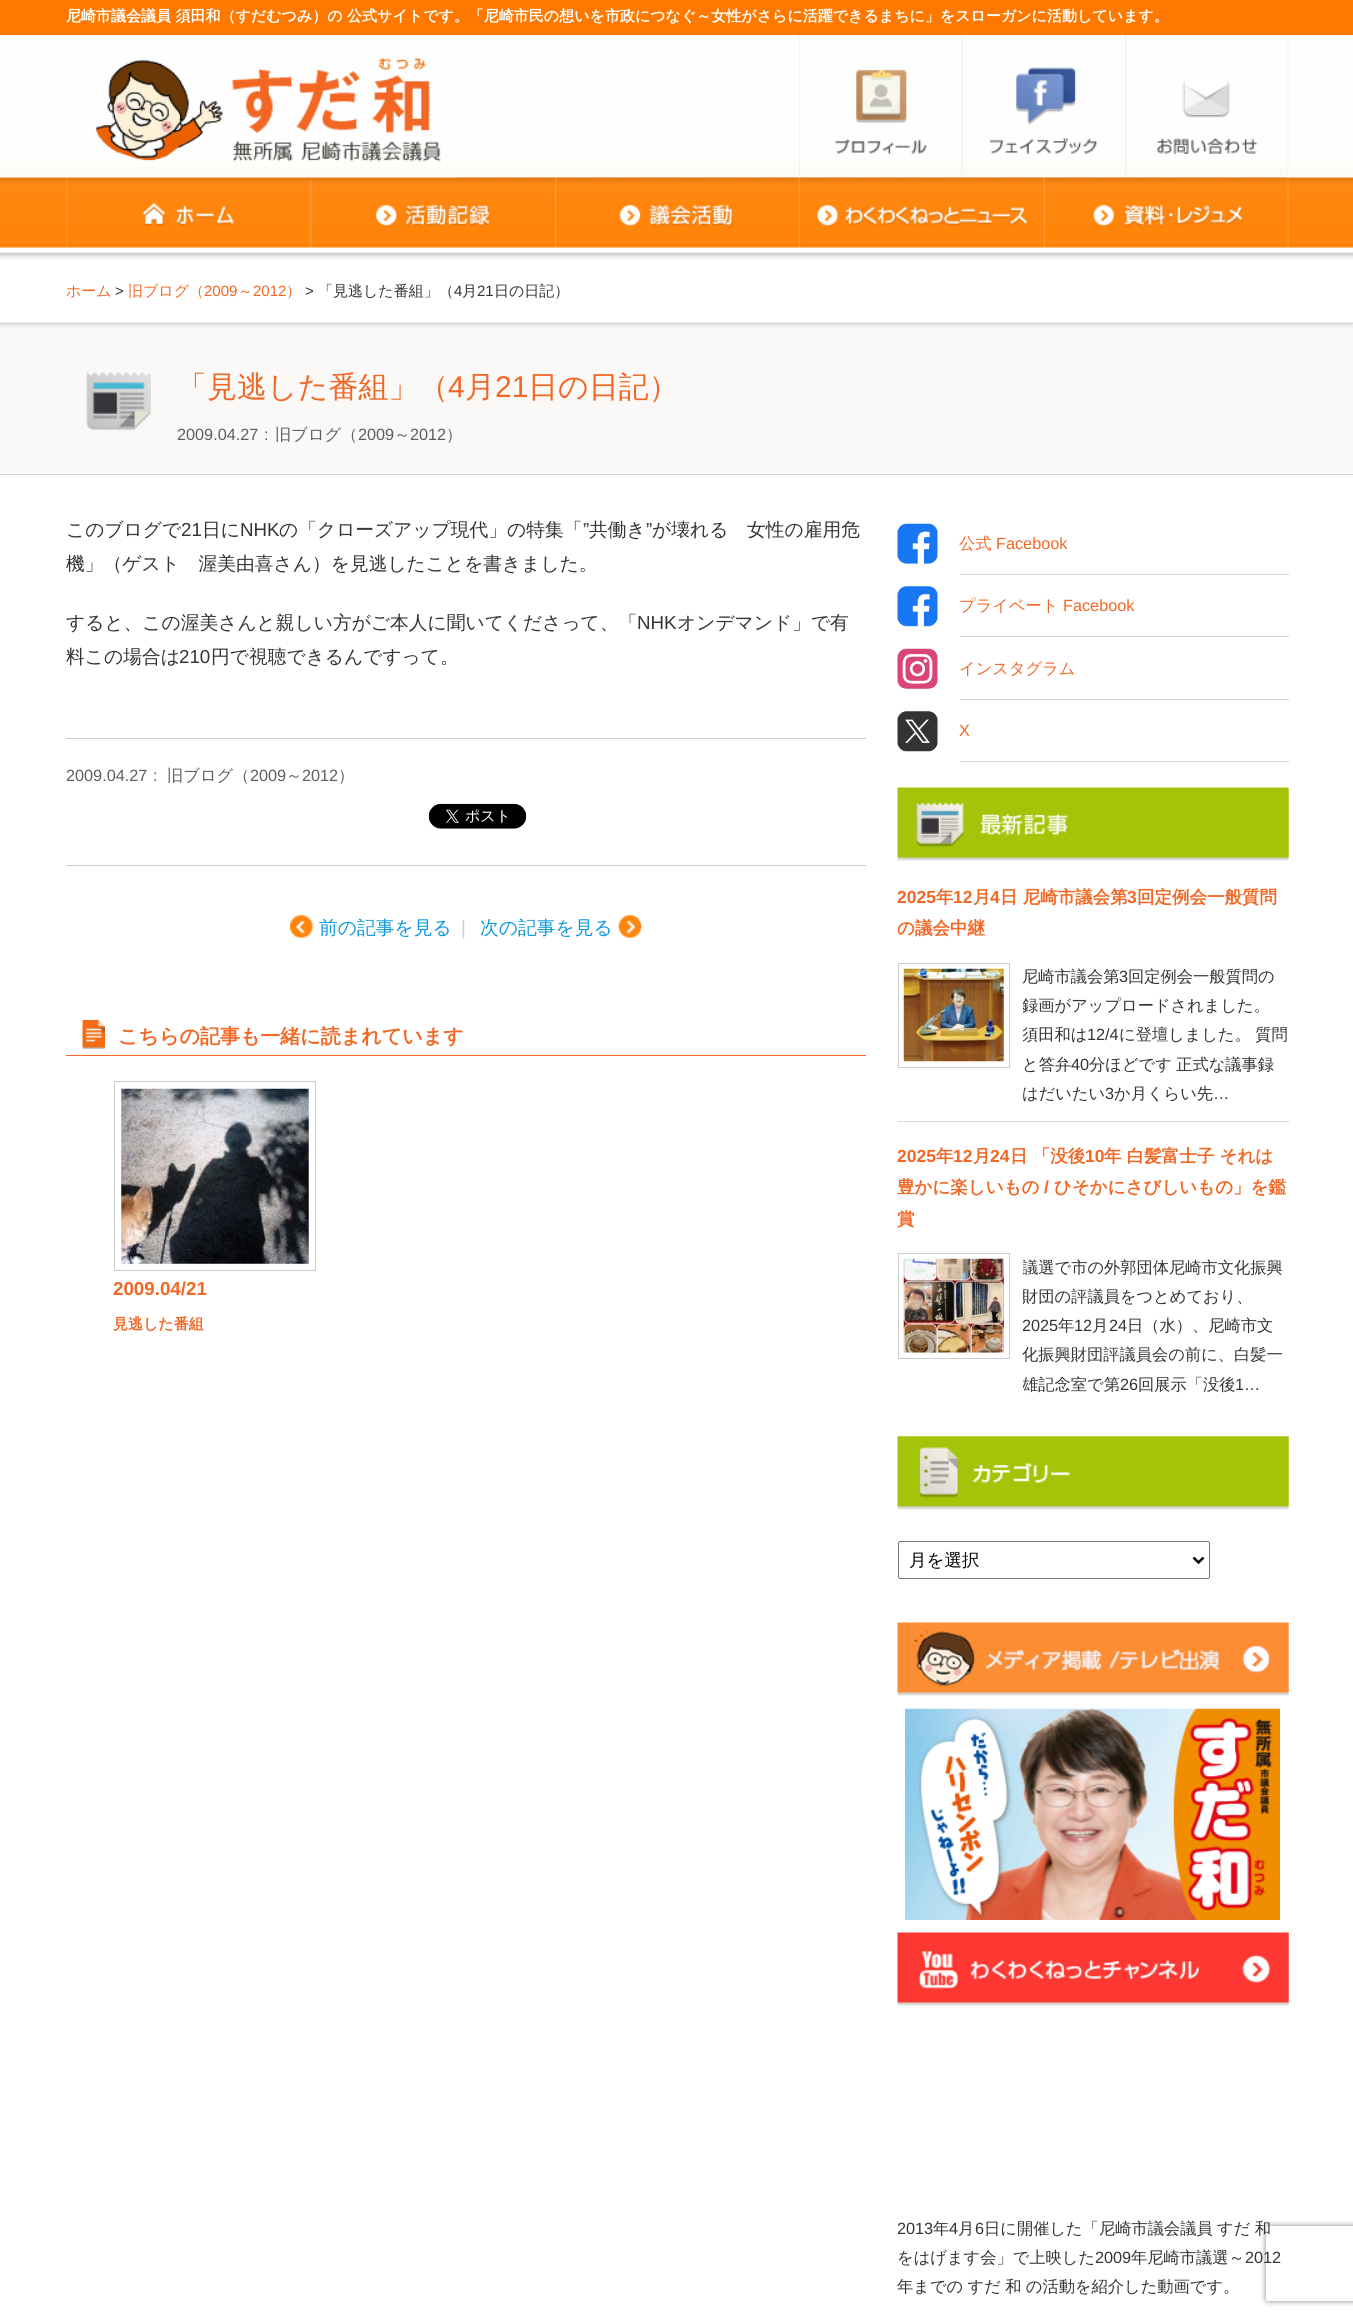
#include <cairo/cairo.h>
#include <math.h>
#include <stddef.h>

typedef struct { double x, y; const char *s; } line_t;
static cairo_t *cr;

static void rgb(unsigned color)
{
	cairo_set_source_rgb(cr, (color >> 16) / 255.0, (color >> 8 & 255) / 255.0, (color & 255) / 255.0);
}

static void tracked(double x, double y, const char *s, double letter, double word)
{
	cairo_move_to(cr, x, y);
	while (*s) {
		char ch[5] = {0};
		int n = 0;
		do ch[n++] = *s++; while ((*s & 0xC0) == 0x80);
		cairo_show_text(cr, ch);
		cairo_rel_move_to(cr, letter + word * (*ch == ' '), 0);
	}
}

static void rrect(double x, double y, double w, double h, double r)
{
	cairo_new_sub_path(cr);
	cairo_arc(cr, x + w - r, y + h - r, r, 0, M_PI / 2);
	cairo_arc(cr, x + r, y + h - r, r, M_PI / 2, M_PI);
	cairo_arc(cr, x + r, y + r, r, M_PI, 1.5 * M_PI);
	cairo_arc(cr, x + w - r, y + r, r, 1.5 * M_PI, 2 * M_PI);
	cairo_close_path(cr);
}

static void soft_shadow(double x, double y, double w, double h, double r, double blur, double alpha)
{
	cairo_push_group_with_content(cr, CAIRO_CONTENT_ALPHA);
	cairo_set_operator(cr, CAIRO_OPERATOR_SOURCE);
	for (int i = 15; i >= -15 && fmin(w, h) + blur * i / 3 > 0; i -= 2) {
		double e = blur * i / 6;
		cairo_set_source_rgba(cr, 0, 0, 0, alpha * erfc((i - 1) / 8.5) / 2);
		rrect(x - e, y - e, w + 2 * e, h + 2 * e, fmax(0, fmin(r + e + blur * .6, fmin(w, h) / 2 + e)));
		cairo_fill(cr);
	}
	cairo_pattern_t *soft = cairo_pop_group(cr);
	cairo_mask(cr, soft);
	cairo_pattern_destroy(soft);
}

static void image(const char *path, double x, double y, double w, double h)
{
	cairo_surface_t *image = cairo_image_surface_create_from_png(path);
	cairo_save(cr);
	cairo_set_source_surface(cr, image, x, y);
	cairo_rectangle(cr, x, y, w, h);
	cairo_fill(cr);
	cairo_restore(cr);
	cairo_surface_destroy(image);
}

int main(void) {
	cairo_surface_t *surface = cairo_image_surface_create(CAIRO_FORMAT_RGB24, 1353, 2318);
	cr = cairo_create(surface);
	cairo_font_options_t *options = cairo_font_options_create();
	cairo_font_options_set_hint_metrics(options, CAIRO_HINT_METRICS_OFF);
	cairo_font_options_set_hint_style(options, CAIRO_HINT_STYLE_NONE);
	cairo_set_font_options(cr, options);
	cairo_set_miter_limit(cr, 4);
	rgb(0xffffff);
	cairo_paint(cr);
	rgb(0xff7900);
	cairo_rectangle(cr, 0, 0, 1353, 35);
	cairo_fill(cr);
	image("img/1.png", 0, 35, 1353, 225);
	image("img/2.png", 66, 57, 392, 121);
	image("img/3.png", 799, 35, 128, 139);
	image("img/4.png", 961, 35, 137, 139);
	image("img/5.png", 1125, 35, 164, 139);
	image("img/6.png", 66, 177, 244, 76);
	image("img/7.png", 310, 177, 245, 76);
	image("img/8.png", 555, 177, 244, 76);
	image("img/9.png", 798, 177, 246, 76);
	image("img/10.png", 1043, 177, 246, 76);
	image("img/11.png", 0, 322, 1353, 7);
	rgb(0xfbf9f8);
	cairo_rectangle(cr, 0, 329, 1353, 145);
	cairo_fill(cr);
	rgb(0xd6d6d6);
	cairo_rectangle(cr, 0, 474, 1353, 1);
	cairo_fill(cr);
	image("img/12.png", 86, 371, 65, 60);
	rgb(0xcccccc);
	cairo_rectangle(cr, 66, 738, 800, 1);
	cairo_fill(cr);
	cairo_rectangle(cr, 66, 865, 800, 1);
	cairo_fill(cr);
	image("img/13.png", 428, 803, 99, 26);
	image("img/14.png", 290, 915, 23, 24);
	image("img/15.png", 618, 915, 24, 24);
	image("img/16.png", 82, 1020, 23, 29);
	rgb(0xf26723);
	cairo_rectangle(cr, 66, 1055, 800, 1);
	cairo_fill(cr);
	cairo_rectangle(cr, 114.5, 1081.5, 201, 189);
	rgb(0xcccccc);
	cairo_set_line_width(cr, 1);
	cairo_stroke(cr);
	image("img/17.png", 121, 1088, 188, 176);
	rgb(0xd6d6d6);
	cairo_rectangle(cr, 960, 574, 329, 1);
	cairo_fill(cr);
	image("img/18.png", 897, 523, 41, 41);
	cairo_rectangle(cr, 960, 636, 329, 1);
	cairo_fill(cr);
	image("img/19.png", 897, 586, 41, 41);
	cairo_rectangle(cr, 960, 699, 329, 1);
	cairo_fill(cr);
	image("img/20.png", 897, 648, 41, 41);
	cairo_rectangle(cr, 960, 761, 329, 1);
	cairo_fill(cr);
	image("img/21.png", 897, 711, 41, 41);
	image("img/22.png", 897, 787, 392, 74);
	cairo_rectangle(cr, 898.5, 963.5, 111, 104);
	rgb(0xcccccc);
	cairo_stroke(cr);
	image("img/23.png", 903, 968, 101, 94);
	rgb(0xd6d6d6);
	cairo_rectangle(cr, 898, 1121, 391, 1);
	cairo_fill(cr);
	cairo_rectangle(cr, 898.5, 1253.5, 111, 105);
	rgb(0xcccccc);
	cairo_stroke(cr);
	image("img/24.png", 903, 1258, 101, 95);
	image("img/25.png", 897, 1436, 392, 74);
	rrect(898.5, 1541.5, 311, 37, 2);
	rgb(0x767676);
	cairo_stroke(cr);
	cairo_new_path(cr);
	cairo_move_to(cr, 1193.5, 1557.5);
	cairo_line_to(cr, 1198.5, 1562.5);
	cairo_line_to(cr, 1203.5, 1557.5);
	rgb(0x000000);
	cairo_set_line_width(cr, 2.5);
	cairo_stroke(cr);
	image("img/26.png", 897, 1622, 392, 74);
	image("img/27.png", 905, 1708, 375, 212);
	image("img/28.png", 897, 1932, 392, 74);
	cairo_save(cr);
	cairo_set_fill_rule(cr, CAIRO_FILL_RULE_EVEN_ODD);
	cairo_new_path(cr);
	cairo_move_to(cr, 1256, 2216);
	cairo_line_to(cr, 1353, 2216);
	cairo_line_to(cr, 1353, 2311);
	cairo_line_to(cr, 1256, 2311);
	cairo_close_path(cr);
	cairo_move_to(cr, 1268.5, 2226);
	cairo_line_to(cr, 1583.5, 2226);
	cairo_curve_to(cr, 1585, 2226, 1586, 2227, 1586, 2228.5);
	cairo_line_to(cr, 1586, 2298.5);
	cairo_curve_to(cr, 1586, 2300, 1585, 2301, 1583.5, 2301);
	cairo_line_to(cr, 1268.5, 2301);
	cairo_curve_to(cr, 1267, 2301, 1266, 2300, 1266, 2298.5);
	cairo_line_to(cr, 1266, 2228.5);
	cairo_curve_to(cr, 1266, 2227, 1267, 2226, 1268.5, 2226);
	cairo_close_path(cr);
	cairo_clip(cr);
	rgb(0x808080);
	soft_shadow(1266, 2226, 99, 75, 2.5, 3, 1);
	cairo_restore(cr);
	cairo_select_font_face(cr, "WenQuanYi Zen Hei", CAIRO_FONT_SLANT_NORMAL, CAIRO_FONT_WEIGHT_BOLD);
	cairo_set_font_size(cr, 15);
	rgb(0xffffff);
	cairo_move_to(cr, 66, 21);
	cairo_show_text(cr, "尼崎市議会議員 須田和（すだむつみ）の 公式サイトです。「尼崎市民の想いを市政につなぐ～女性がさらに活躍できるまちに」をスローガンに活動しています。");
	cairo_select_font_face(cr, "WenQuanYi Zen Hei Medium", CAIRO_FONT_SLANT_NORMAL, CAIRO_FONT_WEIGHT_NORMAL);
	rgb(0xf26723);
	cairo_move_to(cr, 66, 296);
	cairo_show_text(cr, "ホーム");
	cairo_select_font_face(cr, "Liberation Sans", CAIRO_FONT_SLANT_NORMAL, CAIRO_FONT_WEIGHT_NORMAL);
	rgb(0x333333);
	cairo_move_to(cr, 115, 296);
	cairo_show_text(cr, ">");
	cairo_select_font_face(cr, "WenQuanYi Zen Hei Medium", CAIRO_FONT_SLANT_NORMAL, CAIRO_FONT_WEIGHT_NORMAL);
	rgb(0xf26723);
	cairo_move_to(cr, 128, 296);
	cairo_show_text(cr, "旧ブログ（");
	cairo_select_font_face(cr, "Liberation Sans", CAIRO_FONT_SLANT_NORMAL, CAIRO_FONT_WEIGHT_NORMAL);
	cairo_move_to(cr, 204, 296);
	cairo_show_text(cr, "2009");
	cairo_select_font_face(cr, "WenQuanYi Zen Hei Medium", CAIRO_FONT_SLANT_NORMAL, CAIRO_FONT_WEIGHT_NORMAL);
	cairo_move_to(cr, 238, 296);
	cairo_show_text(cr, "～");
	cairo_select_font_face(cr, "Liberation Sans", CAIRO_FONT_SLANT_NORMAL, CAIRO_FONT_WEIGHT_NORMAL);
	cairo_move_to(cr, 253, 296);
	cairo_show_text(cr, "2012");
	cairo_select_font_face(cr, "WenQuanYi Zen Hei Medium", CAIRO_FONT_SLANT_NORMAL, CAIRO_FONT_WEIGHT_NORMAL);
	cairo_move_to(cr, 286, 296);
	cairo_show_text(cr, "）");
	cairo_select_font_face(cr, "Liberation Sans", CAIRO_FONT_SLANT_NORMAL, CAIRO_FONT_WEIGHT_NORMAL);
	rgb(0x333333);
	cairo_move_to(cr, 305, 296);
	cairo_show_text(cr, ">");
	cairo_select_font_face(cr, "WenQuanYi Zen Hei Medium", CAIRO_FONT_SLANT_NORMAL, CAIRO_FONT_WEIGHT_NORMAL);
	cairo_move_to(cr, 318, 296);
	cairo_show_text(cr, "「見逃した番組」（");
	cairo_select_font_face(cr, "Liberation Sans", CAIRO_FONT_SLANT_NORMAL, CAIRO_FONT_WEIGHT_NORMAL);
	cairo_move_to(cr, 454, 296);
	cairo_show_text(cr, "4");
	cairo_select_font_face(cr, "WenQuanYi Zen Hei Medium", CAIRO_FONT_SLANT_NORMAL, CAIRO_FONT_WEIGHT_NORMAL);
	cairo_move_to(cr, 462, 296);
	cairo_show_text(cr, "月");
	cairo_select_font_face(cr, "Liberation Sans", CAIRO_FONT_SLANT_NORMAL, CAIRO_FONT_WEIGHT_NORMAL);
	cairo_move_to(cr, 477, 296);
	cairo_show_text(cr, "21");
	cairo_select_font_face(cr, "WenQuanYi Zen Hei Medium", CAIRO_FONT_SLANT_NORMAL, CAIRO_FONT_WEIGHT_NORMAL);
	cairo_move_to(cr, 494, 296);
	cairo_show_text(cr, "日の日記）");
	cairo_set_font_size(cr, 30);
	rgb(0xf26723);
	cairo_move_to(cr, 177, 397);
	cairo_show_text(cr, "「見逃した番組」（");
	cairo_select_font_face(cr, "Liberation Sans", CAIRO_FONT_SLANT_NORMAL, CAIRO_FONT_WEIGHT_NORMAL);
	cairo_move_to(cr, 448, 397);
	cairo_show_text(cr, "4");
	cairo_select_font_face(cr, "WenQuanYi Zen Hei Medium", CAIRO_FONT_SLANT_NORMAL, CAIRO_FONT_WEIGHT_NORMAL);
	cairo_move_to(cr, 465, 397);
	cairo_show_text(cr, "月");
	cairo_select_font_face(cr, "Liberation Sans", CAIRO_FONT_SLANT_NORMAL, CAIRO_FONT_WEIGHT_NORMAL);
	cairo_move_to(cr, 495, 397);
	cairo_show_text(cr, "21");
	cairo_select_font_face(cr, "WenQuanYi Zen Hei Medium", CAIRO_FONT_SLANT_NORMAL, CAIRO_FONT_WEIGHT_NORMAL);
	cairo_move_to(cr, 528, 397);
	cairo_show_text(cr, "日の日記）");
	cairo_select_font_face(cr, "Liberation Sans", CAIRO_FONT_SLANT_NORMAL, CAIRO_FONT_WEIGHT_NORMAL);
	cairo_set_font_size(cr, 16.25);
	rgb(0x5b5d5e);
	cairo_move_to(cr, 177, 440);
	cairo_show_text(cr, "2009.04.27");
	cairo_move_to(cr, 264, 440);
	cairo_show_text(cr, ":");
	cairo_select_font_face(cr, "WenQuanYi Zen Hei Medium", CAIRO_FONT_SLANT_NORMAL, CAIRO_FONT_WEIGHT_NORMAL);
	cairo_move_to(cr, 275, 440);
	cairo_show_text(cr, "旧ブログ（");
	cairo_select_font_face(cr, "Liberation Sans", CAIRO_FONT_SLANT_NORMAL, CAIRO_FONT_WEIGHT_NORMAL);
	cairo_move_to(cr, 358, 440);
	cairo_show_text(cr, "2009");
	cairo_select_font_face(cr, "WenQuanYi Zen Hei Medium", CAIRO_FONT_SLANT_NORMAL, CAIRO_FONT_WEIGHT_NORMAL);
	cairo_move_to(cr, 394, 440);
	cairo_show_text(cr, "～");
	cairo_select_font_face(cr, "Liberation Sans", CAIRO_FONT_SLANT_NORMAL, CAIRO_FONT_WEIGHT_NORMAL);
	cairo_move_to(cr, 410, 440);
	cairo_show_text(cr, "2012");
	cairo_select_font_face(cr, "WenQuanYi Zen Hei Medium", CAIRO_FONT_SLANT_NORMAL, CAIRO_FONT_WEIGHT_NORMAL);
	cairo_move_to(cr, 446, 440);
	cairo_show_text(cr, "）");
	cairo_set_font_size(cr, 18.75);
	rgb(0x333333);
	cairo_move_to(cr, 66, 536);
	cairo_show_text(cr, "このブログで");
	cairo_select_font_face(cr, "Liberation Sans", CAIRO_FONT_SLANT_NORMAL, CAIRO_FONT_WEIGHT_NORMAL);
	cairo_move_to(cr, 181, 536);
	cairo_show_text(cr, "21");
	cairo_select_font_face(cr, "WenQuanYi Zen Hei Medium", CAIRO_FONT_SLANT_NORMAL, CAIRO_FONT_WEIGHT_NORMAL);
	cairo_move_to(cr, 202, 536);
	cairo_show_text(cr, "日に");
	cairo_select_font_face(cr, "Liberation Sans", CAIRO_FONT_SLANT_NORMAL, CAIRO_FONT_WEIGHT_NORMAL);
	cairo_move_to(cr, 240, 536);
	cairo_show_text(cr, "NHK");
	cairo_select_font_face(cr, "WenQuanYi Zen Hei Medium", CAIRO_FONT_SLANT_NORMAL, CAIRO_FONT_WEIGHT_NORMAL);
	cairo_move_to(cr, 279, 536);
	cairo_show_text(cr, "の「クローズアップ現代」の特集「");
	cairo_select_font_face(cr, "Liberation Sans", CAIRO_FONT_SLANT_NORMAL, CAIRO_FONT_WEIGHT_NORMAL);
	cairo_move_to(cr, 583, 536);
	cairo_show_text(cr, "”");
	cairo_select_font_face(cr, "WenQuanYi Zen Hei Medium", CAIRO_FONT_SLANT_NORMAL, CAIRO_FONT_WEIGHT_NORMAL);
	cairo_move_to(cr, 589, 536);
	cairo_show_text(cr, "共働き");
	cairo_select_font_face(cr, "Liberation Sans", CAIRO_FONT_SLANT_NORMAL, CAIRO_FONT_WEIGHT_NORMAL);
	cairo_move_to(cr, 646, 536);
	cairo_show_text(cr, "”");
	cairo_select_font_face(cr, "WenQuanYi Zen Hei Medium", CAIRO_FONT_SLANT_NORMAL, CAIRO_FONT_WEIGHT_NORMAL);
	{
		static const line_t items[] = {
			{652, 536, "が壊れる　女性の雇用危"},
			{66, 570, "機」（ゲスト　渥美由喜さん）を見逃したことを書きました。"},
			{66, 629, "すると、この渥美さんと親しい方がご本人に聞いてくださって、「"},
		};
		for (size_t i = 0; i < sizeof items / sizeof *items; i++) {
			cairo_move_to(cr, items[i].x, items[i].y);
			cairo_show_text(cr, items[i].s);
		}
	}
	cairo_select_font_face(cr, "Liberation Sans", CAIRO_FONT_SLANT_NORMAL, CAIRO_FONT_WEIGHT_NORMAL);
	cairo_move_to(cr, 637, 629);
	cairo_show_text(cr, "NHK");
	cairo_select_font_face(cr, "WenQuanYi Zen Hei Medium", CAIRO_FONT_SLANT_NORMAL, CAIRO_FONT_WEIGHT_NORMAL);
	cairo_move_to(cr, 677, 629);
	cairo_show_text(cr, "オンデマンド」で有");
	cairo_move_to(cr, 66, 663);
	cairo_show_text(cr, "料この場合は");
	cairo_select_font_face(cr, "Liberation Sans", CAIRO_FONT_SLANT_NORMAL, CAIRO_FONT_WEIGHT_NORMAL);
	cairo_move_to(cr, 179, 663);
	cairo_show_text(cr, "210");
	cairo_select_font_face(cr, "WenQuanYi Zen Hei Medium", CAIRO_FONT_SLANT_NORMAL, CAIRO_FONT_WEIGHT_NORMAL);
	cairo_move_to(cr, 211, 663);
	cairo_show_text(cr, "円で視聴できるんですって。");
	cairo_select_font_face(cr, "Liberation Sans", CAIRO_FONT_SLANT_NORMAL, CAIRO_FONT_WEIGHT_NORMAL);
	cairo_set_font_size(cr, 16.25);
	rgb(0x5b5d5e);
	cairo_move_to(cr, 66, 781);
	cairo_show_text(cr, "2009.04.27");
	cairo_move_to(cr, 153, 781);
	cairo_show_text(cr, ":");
	cairo_select_font_face(cr, "WenQuanYi Zen Hei Medium", CAIRO_FONT_SLANT_NORMAL, CAIRO_FONT_WEIGHT_NORMAL);
	cairo_move_to(cr, 167, 781);
	cairo_show_text(cr, "旧ブログ（");
	cairo_select_font_face(cr, "Liberation Sans", CAIRO_FONT_SLANT_NORMAL, CAIRO_FONT_WEIGHT_NORMAL);
	cairo_move_to(cr, 250, 781);
	cairo_show_text(cr, "2009");
	cairo_select_font_face(cr, "WenQuanYi Zen Hei Medium", CAIRO_FONT_SLANT_NORMAL, CAIRO_FONT_WEIGHT_NORMAL);
	cairo_move_to(cr, 286, 781);
	cairo_show_text(cr, "～");
	cairo_select_font_face(cr, "Liberation Sans", CAIRO_FONT_SLANT_NORMAL, CAIRO_FONT_WEIGHT_NORMAL);
	cairo_move_to(cr, 302, 781);
	cairo_show_text(cr, "2012");
	cairo_select_font_face(cr, "WenQuanYi Zen Hei Medium", CAIRO_FONT_SLANT_NORMAL, CAIRO_FONT_WEIGHT_NORMAL);
	cairo_move_to(cr, 338, 781);
	cairo_show_text(cr, "）");
	cairo_set_font_size(cr, 18.75);
	rgb(0x0d98dc);
	cairo_move_to(cr, 319, 934);
	cairo_show_text(cr, "前の記事を見る");
	cairo_select_font_face(cr, "Liberation Sans", CAIRO_FONT_SLANT_NORMAL, CAIRO_FONT_WEIGHT_NORMAL);
	rgb(0xcccccc);
	cairo_move_to(cr, 461, 934);
	cairo_show_text(cr, "|");
	cairo_select_font_face(cr, "WenQuanYi Zen Hei Medium", CAIRO_FONT_SLANT_NORMAL, CAIRO_FONT_WEIGHT_NORMAL);
	rgb(0x0d98dc);
	cairo_move_to(cr, 480, 934);
	cairo_show_text(cr, "次の記事を見る");
	cairo_select_font_face(cr, "WenQuanYi Zen Hei", CAIRO_FONT_SLANT_NORMAL, CAIRO_FONT_WEIGHT_BOLD);
	cairo_set_font_size(cr, 20);
	rgb(0xf26723);
	cairo_move_to(cr, 118, 1043);
	cairo_show_text(cr, "こちらの記事も一緒に読まれています");
	cairo_select_font_face(cr, "Liberation Sans", CAIRO_FONT_SLANT_NORMAL, CAIRO_FONT_WEIGHT_BOLD);
	cairo_set_font_size(cr, 18.75);
	cairo_move_to(cr, 113, 1295);
	cairo_show_text(cr, "2009.04/21");
	cairo_select_font_face(cr, "WenQuanYi Zen Hei", CAIRO_FONT_SLANT_NORMAL, CAIRO_FONT_WEIGHT_BOLD);
	cairo_set_font_size(cr, 15);
	cairo_move_to(cr, 113, 1329);
	cairo_show_text(cr, "見逃した番組");
	cairo_select_font_face(cr, "WenQuanYi Zen Hei Medium", CAIRO_FONT_SLANT_NORMAL, CAIRO_FONT_WEIGHT_NORMAL);
	cairo_set_font_size(cr, 16.25);
	cairo_move_to(cr, 959, 549);
	cairo_show_text(cr, "公式");
	cairo_select_font_face(cr, "Liberation Sans", CAIRO_FONT_SLANT_NORMAL, CAIRO_FONT_WEIGHT_NORMAL);
	cairo_move_to(cr, 996, 549);
	cairo_show_text(cr, "Facebook");
	cairo_select_font_face(cr, "WenQuanYi Zen Hei Medium", CAIRO_FONT_SLANT_NORMAL, CAIRO_FONT_WEIGHT_NORMAL);
	cairo_move_to(cr, 959, 611);
	cairo_show_text(cr, "プライベート");
	cairo_select_font_face(cr, "Liberation Sans", CAIRO_FONT_SLANT_NORMAL, CAIRO_FONT_WEIGHT_NORMAL);
	cairo_move_to(cr, 1063, 611);
	cairo_show_text(cr, "Facebook");
	cairo_select_font_face(cr, "WenQuanYi Zen Hei Medium", CAIRO_FONT_SLANT_NORMAL, CAIRO_FONT_WEIGHT_NORMAL);
	cairo_move_to(cr, 959, 674);
	cairo_show_text(cr, "インスタグラム");
	cairo_select_font_face(cr, "Liberation Sans", CAIRO_FONT_SLANT_NORMAL, CAIRO_FONT_WEIGHT_NORMAL);
	cairo_move_to(cr, 959, 736);
	cairo_show_text(cr, "X");
	cairo_select_font_face(cr, "Liberation Sans", CAIRO_FONT_SLANT_NORMAL, CAIRO_FONT_WEIGHT_BOLD);
	cairo_set_font_size(cr, 17.5);
	cairo_move_to(cr, 897, 903);
	cairo_show_text(cr, "2025");
	cairo_select_font_face(cr, "WenQuanYi Zen Hei", CAIRO_FONT_SLANT_NORMAL, CAIRO_FONT_WEIGHT_BOLD);
	cairo_move_to(cr, 936, 903);
	cairo_show_text(cr, "年");
	cairo_select_font_face(cr, "Liberation Sans", CAIRO_FONT_SLANT_NORMAL, CAIRO_FONT_WEIGHT_BOLD);
	cairo_move_to(cr, 953, 903);
	cairo_show_text(cr, "12");
	cairo_select_font_face(cr, "WenQuanYi Zen Hei", CAIRO_FONT_SLANT_NORMAL, CAIRO_FONT_WEIGHT_BOLD);
	cairo_move_to(cr, 973, 903);
	cairo_show_text(cr, "月");
	cairo_select_font_face(cr, "Liberation Sans", CAIRO_FONT_SLANT_NORMAL, CAIRO_FONT_WEIGHT_BOLD);
	cairo_move_to(cr, 990, 903);
	cairo_show_text(cr, "4");
	cairo_select_font_face(cr, "WenQuanYi Zen Hei", CAIRO_FONT_SLANT_NORMAL, CAIRO_FONT_WEIGHT_BOLD);
	cairo_move_to(cr, 1000, 903);
	cairo_show_text(cr, "日 尼崎市議会第");
	cairo_select_font_face(cr, "Liberation Sans", CAIRO_FONT_SLANT_NORMAL, CAIRO_FONT_WEIGHT_BOLD);
	cairo_move_to(cr, 1127, 903);
	cairo_show_text(cr, "3");
	cairo_select_font_face(cr, "WenQuanYi Zen Hei", CAIRO_FONT_SLANT_NORMAL, CAIRO_FONT_WEIGHT_BOLD);
	cairo_move_to(cr, 1137, 903);
	cairo_show_text(cr, "回定例会一般質問");
	cairo_move_to(cr, 897, 934);
	cairo_show_text(cr, "の議会中継");
	cairo_select_font_face(cr, "WenQuanYi Zen Hei Medium", CAIRO_FONT_SLANT_NORMAL, CAIRO_FONT_WEIGHT_NORMAL);
	cairo_set_font_size(cr, 16.25);
	rgb(0x333333);
	cairo_move_to(cr, 1022, 982);
	cairo_show_text(cr, "尼崎市議会第");
	cairo_select_font_face(cr, "Liberation Sans", CAIRO_FONT_SLANT_NORMAL, CAIRO_FONT_WEIGHT_NORMAL);
	cairo_move_to(cr, 1119, 982);
	cairo_show_text(cr, "3");
	cairo_select_font_face(cr, "WenQuanYi Zen Hei Medium", CAIRO_FONT_SLANT_NORMAL, CAIRO_FONT_WEIGHT_NORMAL);
	cairo_move_to(cr, 1128, 982);
	cairo_show_text(cr, "回定例会一般質問の");
	cairo_save(cr);
	cairo_rectangle(cr, 1023, 963, 266, 158);
	cairo_clip(cr);
	cairo_move_to(cr, 1022, 1011);
	cairo_show_text(cr, "録画がアップロードされました。");
	cairo_move_to(cr, 1022, 1040);
	cairo_show_text(cr, "須田和は");
	cairo_restore(cr);
	cairo_select_font_face(cr, "Liberation Sans", CAIRO_FONT_SLANT_NORMAL, CAIRO_FONT_WEIGHT_NORMAL);
	cairo_move_to(cr, 1087, 1040);
	cairo_show_text(cr, "12/4");
	cairo_select_font_face(cr, "WenQuanYi Zen Hei Medium", CAIRO_FONT_SLANT_NORMAL, CAIRO_FONT_WEIGHT_NORMAL);
	tracked(1119, 1040, "に登壇しました。 質問", 0, -0.5);
	cairo_move_to(cr, 1022, 1070);
	cairo_show_text(cr, "と答弁");
	cairo_select_font_face(cr, "Liberation Sans", CAIRO_FONT_SLANT_NORMAL, CAIRO_FONT_WEIGHT_NORMAL);
	cairo_move_to(cr, 1071, 1070);
	cairo_show_text(cr, "40");
	cairo_select_font_face(cr, "WenQuanYi Zen Hei Medium", CAIRO_FONT_SLANT_NORMAL, CAIRO_FONT_WEIGHT_NORMAL);
	tracked(1089, 1070, "分ほどです 正式な議事録", 0, -0.5);
	cairo_move_to(cr, 1022, 1099);
	cairo_show_text(cr, "はだいたい");
	cairo_select_font_face(cr, "Liberation Sans", CAIRO_FONT_SLANT_NORMAL, CAIRO_FONT_WEIGHT_NORMAL);
	cairo_move_to(cr, 1105, 1099);
	cairo_show_text(cr, "3");
	cairo_select_font_face(cr, "WenQuanYi Zen Hei Medium", CAIRO_FONT_SLANT_NORMAL, CAIRO_FONT_WEIGHT_NORMAL);
	cairo_move_to(cr, 1114, 1099);
	cairo_show_text(cr, "か月くらい先");
	cairo_select_font_face(cr, "Liberation Sans", CAIRO_FONT_SLANT_NORMAL, CAIRO_FONT_WEIGHT_NORMAL);
	cairo_move_to(cr, 1213, 1099);
	cairo_show_text(cr, "…");
	cairo_select_font_face(cr, "Liberation Sans", CAIRO_FONT_SLANT_NORMAL, CAIRO_FONT_WEIGHT_BOLD);
	cairo_set_font_size(cr, 17.5);
	rgb(0xf26723);
	cairo_move_to(cr, 897, 1162);
	cairo_show_text(cr, "2025");
	cairo_select_font_face(cr, "WenQuanYi Zen Hei", CAIRO_FONT_SLANT_NORMAL, CAIRO_FONT_WEIGHT_BOLD);
	cairo_move_to(cr, 936, 1162);
	cairo_show_text(cr, "年");
	cairo_select_font_face(cr, "Liberation Sans", CAIRO_FONT_SLANT_NORMAL, CAIRO_FONT_WEIGHT_BOLD);
	cairo_move_to(cr, 953, 1162);
	cairo_show_text(cr, "12");
	cairo_select_font_face(cr, "WenQuanYi Zen Hei", CAIRO_FONT_SLANT_NORMAL, CAIRO_FONT_WEIGHT_BOLD);
	cairo_move_to(cr, 973, 1162);
	cairo_show_text(cr, "月");
	cairo_select_font_face(cr, "Liberation Sans", CAIRO_FONT_SLANT_NORMAL, CAIRO_FONT_WEIGHT_BOLD);
	cairo_move_to(cr, 990, 1162);
	cairo_show_text(cr, "24");
	cairo_select_font_face(cr, "WenQuanYi Zen Hei", CAIRO_FONT_SLANT_NORMAL, CAIRO_FONT_WEIGHT_BOLD);
	cairo_move_to(cr, 1010, 1162);
	cairo_show_text(cr, "日 「没後");
	cairo_select_font_face(cr, "Liberation Sans", CAIRO_FONT_SLANT_NORMAL, CAIRO_FONT_WEIGHT_BOLD);
	cairo_move_to(cr, 1085, 1162);
	cairo_show_text(cr, "10");
	cairo_select_font_face(cr, "WenQuanYi Zen Hei", CAIRO_FONT_SLANT_NORMAL, CAIRO_FONT_WEIGHT_BOLD);
	cairo_move_to(cr, 1104, 1162);
	cairo_show_text(cr, "年 白髪富士子 それは");
	cairo_move_to(cr, 897, 1193);
	cairo_show_text(cr, "豊かに楽しいもの");
	cairo_select_font_face(cr, "Liberation Sans", CAIRO_FONT_SLANT_NORMAL, CAIRO_FONT_WEIGHT_BOLD);
	cairo_move_to(cr, 1044, 1193);
	cairo_show_text(cr, "/");
	cairo_select_font_face(cr, "WenQuanYi Zen Hei", CAIRO_FONT_SLANT_NORMAL, CAIRO_FONT_WEIGHT_BOLD);
	cairo_move_to(cr, 1054, 1193);
	cairo_show_text(cr, "ひそかにさびしいもの」を鑑");
	cairo_move_to(cr, 897, 1225);
	cairo_show_text(cr, "賞");
	cairo_save(cr);
	cairo_rectangle(cr, 1023, 1253, 266, 158);
	cairo_clip(cr);
	cairo_select_font_face(cr, "WenQuanYi Zen Hei Medium", CAIRO_FONT_SLANT_NORMAL, CAIRO_FONT_WEIGHT_NORMAL);
	cairo_set_font_size(cr, 16.25);
	rgb(0x333333);
	cairo_move_to(cr, 1022, 1273);
	cairo_show_text(cr, "議選で市の外郭団体尼崎市文化振興");
	cairo_move_to(cr, 1022, 1302);
	cairo_show_text(cr, "財団の評議員をつとめており、");
	cairo_select_font_face(cr, "Liberation Sans", CAIRO_FONT_SLANT_NORMAL, CAIRO_FONT_WEIGHT_NORMAL);
	cairo_move_to(cr, 1022, 1331);
	cairo_show_text(cr, "2025");
	cairo_restore(cr);
	cairo_select_font_face(cr, "WenQuanYi Zen Hei Medium", CAIRO_FONT_SLANT_NORMAL, CAIRO_FONT_WEIGHT_NORMAL);
	cairo_set_font_size(cr, 16.25);
	rgb(0x333333);
	cairo_move_to(cr, 1058, 1331);
	cairo_show_text(cr, "年");
	cairo_select_font_face(cr, "Liberation Sans", CAIRO_FONT_SLANT_NORMAL, CAIRO_FONT_WEIGHT_NORMAL);
	cairo_move_to(cr, 1074, 1331);
	cairo_show_text(cr, "12");
	cairo_select_font_face(cr, "WenQuanYi Zen Hei Medium", CAIRO_FONT_SLANT_NORMAL, CAIRO_FONT_WEIGHT_NORMAL);
	cairo_move_to(cr, 1092, 1331);
	cairo_show_text(cr, "月");
	cairo_select_font_face(cr, "Liberation Sans", CAIRO_FONT_SLANT_NORMAL, CAIRO_FONT_WEIGHT_NORMAL);
	cairo_move_to(cr, 1109, 1331);
	cairo_show_text(cr, "24");
	cairo_select_font_face(cr, "WenQuanYi Zen Hei Medium", CAIRO_FONT_SLANT_NORMAL, CAIRO_FONT_WEIGHT_NORMAL);
	cairo_move_to(cr, 1127, 1331);
	cairo_show_text(cr, "日（水）、尼崎市文");
	cairo_move_to(cr, 1022, 1360);
	cairo_show_text(cr, "化振興財団評議員会の前に、白髪一");
	cairo_save(cr);
	cairo_rectangle(cr, 1023, 1253, 266, 158);
	cairo_clip(cr);
	cairo_move_to(cr, 1022, 1390);
	cairo_show_text(cr, "雄記念室で第");
	cairo_restore(cr);
	cairo_select_font_face(cr, "Liberation Sans", CAIRO_FONT_SLANT_NORMAL, CAIRO_FONT_WEIGHT_NORMAL);
	cairo_move_to(cr, 1120, 1390);
	cairo_show_text(cr, "26");
	cairo_select_font_face(cr, "WenQuanYi Zen Hei Medium", CAIRO_FONT_SLANT_NORMAL, CAIRO_FONT_WEIGHT_NORMAL);
	cairo_move_to(cr, 1138, 1390);
	cairo_show_text(cr, "回展示「没後");
	cairo_select_font_face(cr, "Liberation Sans", CAIRO_FONT_SLANT_NORMAL, CAIRO_FONT_WEIGHT_NORMAL);
	cairo_move_to(cr, 1235, 1390);
	cairo_show_text(cr, "1…");
	cairo_select_font_face(cr, "WenQuanYi Zen Hei Medium", CAIRO_FONT_SLANT_NORMAL, CAIRO_FONT_WEIGHT_NORMAL);
	cairo_set_font_size(cr, 17.5);
	rgb(0x000000);
	cairo_move_to(cr, 909, 1566);
	cairo_show_text(cr, "月を選択");
	cairo_select_font_face(cr, "Liberation Sans", CAIRO_FONT_SLANT_NORMAL, CAIRO_FONT_WEIGHT_NORMAL);
	cairo_set_font_size(cr, 16.25);
	rgb(0x333333);
	cairo_move_to(cr, 897, 2234);
	cairo_show_text(cr, "2013");
	cairo_select_font_face(cr, "WenQuanYi Zen Hei Medium", CAIRO_FONT_SLANT_NORMAL, CAIRO_FONT_WEIGHT_NORMAL);
	cairo_move_to(cr, 933, 2234);
	cairo_show_text(cr, "年");
	cairo_select_font_face(cr, "Liberation Sans", CAIRO_FONT_SLANT_NORMAL, CAIRO_FONT_WEIGHT_NORMAL);
	cairo_move_to(cr, 949, 2234);
	cairo_show_text(cr, "4");
	cairo_select_font_face(cr, "WenQuanYi Zen Hei Medium", CAIRO_FONT_SLANT_NORMAL, CAIRO_FONT_WEIGHT_NORMAL);
	cairo_move_to(cr, 958, 2234);
	cairo_show_text(cr, "月");
	cairo_select_font_face(cr, "Liberation Sans", CAIRO_FONT_SLANT_NORMAL, CAIRO_FONT_WEIGHT_NORMAL);
	cairo_move_to(cr, 975, 2234);
	cairo_show_text(cr, "6");
	cairo_select_font_face(cr, "WenQuanYi Zen Hei Medium", CAIRO_FONT_SLANT_NORMAL, CAIRO_FONT_WEIGHT_NORMAL);
	tracked(984, 2234, "日に開催した「尼崎市議会議員 すだ 和", 0, -0.5);
	cairo_move_to(cr, 897, 2263);
	cairo_show_text(cr, "をはげます会」で上映した");
	cairo_select_font_face(cr, "Liberation Sans", CAIRO_FONT_SLANT_NORMAL, CAIRO_FONT_WEIGHT_NORMAL);
	cairo_move_to(cr, 1095, 2263);
	cairo_show_text(cr, "2009");
	cairo_select_font_face(cr, "WenQuanYi Zen Hei Medium", CAIRO_FONT_SLANT_NORMAL, CAIRO_FONT_WEIGHT_NORMAL);
	cairo_move_to(cr, 1131, 2263);
	cairo_show_text(cr, "年尼崎市議選～");
	cairo_select_font_face(cr, "Liberation Sans", CAIRO_FONT_SLANT_NORMAL, CAIRO_FONT_WEIGHT_NORMAL);
	cairo_move_to(cr, 1245, 2263);
	cairo_show_text(cr, "2012");
	cairo_select_font_face(cr, "WenQuanYi Zen Hei Medium", CAIRO_FONT_SLANT_NORMAL, CAIRO_FONT_WEIGHT_NORMAL);
	tracked(897, 2292, "年までの すだ 和 の活動を紹介した動画です。", 0, -0.5);
	cairo_surface_write_to_png(surface, "page.png");
	cairo_font_options_destroy(options);
	cairo_destroy(cr);
	cairo_surface_destroy(surface);
	return 0;
}
